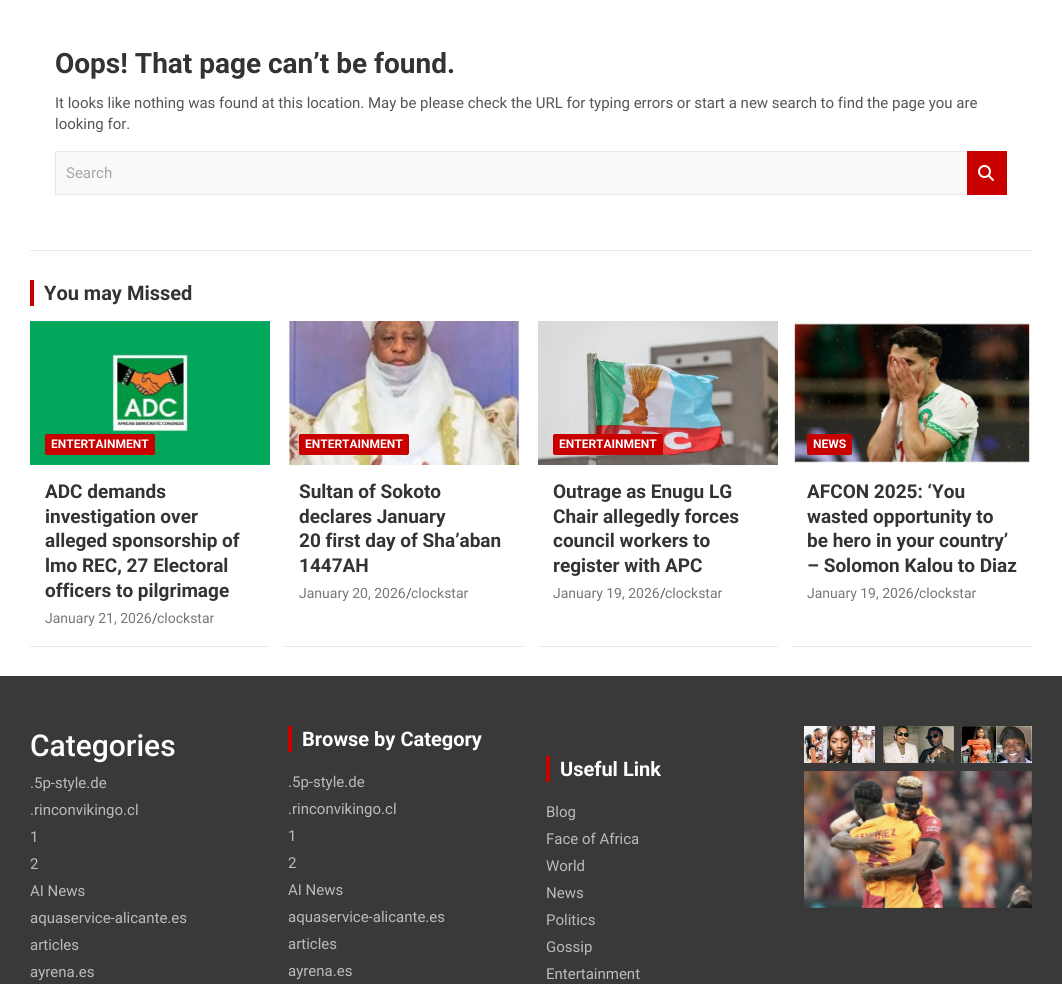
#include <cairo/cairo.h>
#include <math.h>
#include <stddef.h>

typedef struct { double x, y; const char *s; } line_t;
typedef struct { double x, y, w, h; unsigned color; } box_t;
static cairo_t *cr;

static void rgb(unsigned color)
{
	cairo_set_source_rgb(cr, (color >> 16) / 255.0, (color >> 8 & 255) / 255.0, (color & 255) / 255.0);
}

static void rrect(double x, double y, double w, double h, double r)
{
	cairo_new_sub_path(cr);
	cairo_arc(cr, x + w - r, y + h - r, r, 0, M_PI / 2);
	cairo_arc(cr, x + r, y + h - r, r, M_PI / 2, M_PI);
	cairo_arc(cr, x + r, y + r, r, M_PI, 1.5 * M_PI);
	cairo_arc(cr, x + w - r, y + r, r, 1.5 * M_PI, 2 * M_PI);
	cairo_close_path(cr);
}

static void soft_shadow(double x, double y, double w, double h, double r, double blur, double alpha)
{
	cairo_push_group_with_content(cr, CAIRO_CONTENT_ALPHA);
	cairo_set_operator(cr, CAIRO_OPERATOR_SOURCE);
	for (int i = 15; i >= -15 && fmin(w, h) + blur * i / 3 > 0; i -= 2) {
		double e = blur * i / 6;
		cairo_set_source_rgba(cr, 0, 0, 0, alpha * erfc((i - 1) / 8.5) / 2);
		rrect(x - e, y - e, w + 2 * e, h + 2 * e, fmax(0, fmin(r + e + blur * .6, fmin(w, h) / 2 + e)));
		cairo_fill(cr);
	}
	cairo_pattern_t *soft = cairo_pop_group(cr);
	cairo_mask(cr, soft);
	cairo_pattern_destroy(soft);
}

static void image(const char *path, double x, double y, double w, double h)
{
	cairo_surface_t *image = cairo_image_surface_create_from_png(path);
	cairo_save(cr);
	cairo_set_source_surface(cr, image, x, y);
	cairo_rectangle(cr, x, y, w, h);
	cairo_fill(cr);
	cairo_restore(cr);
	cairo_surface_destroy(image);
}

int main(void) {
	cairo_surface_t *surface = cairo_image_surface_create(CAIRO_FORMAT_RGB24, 1062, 984);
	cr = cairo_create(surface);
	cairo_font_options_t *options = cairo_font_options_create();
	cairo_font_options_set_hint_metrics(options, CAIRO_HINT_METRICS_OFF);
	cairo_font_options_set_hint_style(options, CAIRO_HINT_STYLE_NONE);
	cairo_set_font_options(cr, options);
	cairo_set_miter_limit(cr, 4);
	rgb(0xffffff);
	cairo_paint(cr);
	cairo_save(cr);
	cairo_rectangle(cr, 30, 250, 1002, 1);
	cairo_clip(cr);
	rgb(0x000000);
	soft_shadow(30, 22, 1002, 229, 0, 0.5, 0.1);
	cairo_restore(cr);
	rgb(0xf9f9f9);
	cairo_rectangle(cr, 56, 152, 911, 42);
	cairo_fill(cr);
	rgb(0xe8e8e8);
	cairo_new_path(cr);
	cairo_move_to(cr, 55, 151);
	cairo_line_to(cr, 967, 151);
	cairo_line_to(cr, 967, 152);
	cairo_line_to(cr, 56, 152);
	cairo_close_path(cr);
	cairo_fill(cr);
	cairo_new_path(cr);
	cairo_move_to(cr, 967, 195);
	cairo_line_to(cr, 55, 195);
	cairo_line_to(cr, 56, 194);
	cairo_line_to(cr, 967, 194);
	cairo_close_path(cr);
	cairo_fill(cr);
	cairo_set_source_rgba(cr, 0, 0, 0, 0.09);
	cairo_new_path(cr);
	cairo_move_to(cr, 55, 195);
	cairo_line_to(cr, 55, 151);
	cairo_line_to(cr, 56, 152);
	cairo_line_to(cr, 56, 194);
	cairo_close_path(cr);
	cairo_fill(cr);
	rgb(0xc80000);
	cairo_rectangle(cr, 967, 151, 40, 44);
	cairo_fill(cr);
	image("img/1.png", 978, 165, 16, 16);
	cairo_rectangle(cr, 30, 280, 4, 26);
	cairo_fill(cr);
	cairo_save(cr);
	cairo_rectangle(cr, 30, 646, 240, 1);
	cairo_clip(cr);
	rgb(0x000000);
	soft_shadow(30, 322, 240, 325, 0, 0.5, 0.1);
	cairo_restore(cr);
	image("img/2.png", 30, 321, 240, 144);
	rrect(45, 434, 110, 21, 2);
	cairo_fill(cr);
	cairo_save(cr);
	cairo_rectangle(cr, 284, 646, 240, 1);
	cairo_clip(cr);
	rgb(0x000000);
	soft_shadow(284, 322, 240, 325, 0, 0.5, 0.1);
	cairo_restore(cr);
	image("img/3.png", 284, 321, 240, 144);
	rrect(299, 434, 110, 21, 2);
	cairo_fill(cr);
	cairo_save(cr);
	cairo_rectangle(cr, 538, 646, 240, 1);
	cairo_clip(cr);
	rgb(0x000000);
	soft_shadow(538, 322, 240, 325, 0, 0.5, 0.1);
	cairo_restore(cr);
	image("img/4.png", 538, 321, 240, 144);
	rrect(553, 434, 110, 21, 2);
	cairo_fill(cr);
	cairo_save(cr);
	cairo_rectangle(cr, 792, 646, 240, 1);
	cairo_clip(cr);
	rgb(0x000000);
	soft_shadow(792, 322, 240, 325, 0, 0.5, 0.1);
	cairo_restore(cr);
	image("img/5.png", 792, 321, 240, 144);
	rrect(807, 434, 45, 21, 2);
	cairo_fill(cr);
	{
		static const box_t items[] = {
			{0, 676, 1062, 308, 0x393939},
			{288, 726, 4, 26, 0xc80000},
			{546, 756, 4, 26, 0xc80000},
		};
		for (size_t i = 0; i < sizeof items / sizeof *items; i++) {
			rgb(items[i].color);
			cairo_rectangle(cr, items[i].x, items[i].y, items[i].w, items[i].h);
			cairo_fill(cr);
		}
	}
	image("img/6.png", 804, 726, 71, 37);
	image("img/7.png", 883, 726, 71, 37);
	image("img/8.png", 961, 726, 71, 37);
	image("img/9.png", 804, 771, 228, 137);
	cairo_select_font_face(cr, "Roboto", CAIRO_FONT_SLANT_NORMAL, CAIRO_FONT_WEIGHT_BOLD);
	cairo_set_font_size(cr, 28);
	rgb(0x333333);
	cairo_move_to(cr, 55, 73);
	cairo_show_text(cr, "Oops! That page can’t be found.");
	cairo_select_font_face(cr, "Roboto", CAIRO_FONT_SLANT_NORMAL, CAIRO_FONT_WEIGHT_NORMAL);
	cairo_set_font_size(cr, 15);
	rgb(0x555555);
	cairo_move_to(cr, 55, 108);
	cairo_show_text(cr, "It looks like nothing was found at this location. May be please check the URL for typing errors or start a new search to find the page you are");
	cairo_move_to(cr, 55, 129);
	cairo_show_text(cr, "looking for.");
	rgb(0xa7a7a7);
	cairo_move_to(cr, 66, 178);
	cairo_show_text(cr, "Search");
	cairo_select_font_face(cr, "Roboto", CAIRO_FONT_SLANT_NORMAL, CAIRO_FONT_WEIGHT_BOLD);
	cairo_set_font_size(cr, 20);
	rgb(0x333333);
	cairo_move_to(cr, 44, 300);
	cairo_show_text(cr, "You may Missed");
	cairo_set_font_size(cr, 12);
	rgb(0xffffff);
	cairo_move_to(cr, 51, 448);
	cairo_show_text(cr, "ENTERTAINMENT");
	cairo_set_font_size(cr, 19);
	rgb(0x333333);
	{
		static const line_t items[] = {
			{45, 498, "ADC demands"},
			{45, 523, "investigation over"},
			{45, 547, "alleged sponsorship of"},
			{45, 572, "lmo REC, 27 Electoral"},
			{45, 597, "officers to pilgrimage"},
		};
		for (size_t i = 0; i < sizeof items / sizeof *items; i++) {
			cairo_move_to(cr, items[i].x, items[i].y);
			cairo_show_text(cr, items[i].s);
		}
	}
	cairo_select_font_face(cr, "Roboto", CAIRO_FONT_SLANT_NORMAL, CAIRO_FONT_WEIGHT_NORMAL);
	cairo_set_font_size(cr, 14);
	rgb(0x777777);
	cairo_move_to(cr, 45, 623);
	cairo_show_text(cr, "January 21, 2026");
	rgb(0x555555);
	cairo_move_to(cr, 152, 623);
	cairo_show_text(cr, "/");
	rgb(0x777777);
	cairo_move_to(cr, 157, 623);
	cairo_show_text(cr, "clockstar");
	cairo_select_font_face(cr, "Roboto", CAIRO_FONT_SLANT_NORMAL, CAIRO_FONT_WEIGHT_BOLD);
	cairo_set_font_size(cr, 12);
	rgb(0xffffff);
	cairo_move_to(cr, 305, 448);
	cairo_show_text(cr, "ENTERTAINMENT");
	cairo_set_font_size(cr, 19);
	rgb(0x333333);
	{
		static const line_t items[] = {
			{299, 498, "Sultan of Sokoto"},
			{299, 523, "declares January"},
			{299, 547, "20 first day of Sha’aban"},
			{299, 572, "1447AH"},
		};
		for (size_t i = 0; i < sizeof items / sizeof *items; i++) {
			cairo_move_to(cr, items[i].x, items[i].y);
			cairo_show_text(cr, items[i].s);
		}
	}
	cairo_select_font_face(cr, "Roboto", CAIRO_FONT_SLANT_NORMAL, CAIRO_FONT_WEIGHT_NORMAL);
	cairo_set_font_size(cr, 14);
	rgb(0x777777);
	cairo_move_to(cr, 299, 598);
	cairo_show_text(cr, "January 20, 2026");
	rgb(0x555555);
	cairo_move_to(cr, 406, 598);
	cairo_show_text(cr, "/");
	rgb(0x777777);
	cairo_move_to(cr, 411, 598);
	cairo_show_text(cr, "clockstar");
	cairo_select_font_face(cr, "Roboto", CAIRO_FONT_SLANT_NORMAL, CAIRO_FONT_WEIGHT_BOLD);
	cairo_set_font_size(cr, 12);
	rgb(0xffffff);
	cairo_move_to(cr, 559, 448);
	cairo_show_text(cr, "ENTERTAINMENT");
	cairo_set_font_size(cr, 19);
	rgb(0x333333);
	{
		static const line_t items[] = {
			{553, 498, "Outrage as Enugu LG"},
			{553, 523, "Chair allegedly forces"},
			{553, 547, "council workers to"},
			{553, 572, "register with APC"},
		};
		for (size_t i = 0; i < sizeof items / sizeof *items; i++) {
			cairo_move_to(cr, items[i].x, items[i].y);
			cairo_show_text(cr, items[i].s);
		}
	}
	cairo_select_font_face(cr, "Roboto", CAIRO_FONT_SLANT_NORMAL, CAIRO_FONT_WEIGHT_NORMAL);
	cairo_set_font_size(cr, 14);
	rgb(0x777777);
	cairo_move_to(cr, 553, 598);
	cairo_show_text(cr, "January 19, 2026");
	rgb(0x555555);
	cairo_move_to(cr, 660, 598);
	cairo_show_text(cr, "/");
	rgb(0x777777);
	cairo_move_to(cr, 665, 598);
	cairo_show_text(cr, "clockstar");
	cairo_select_font_face(cr, "Roboto", CAIRO_FONT_SLANT_NORMAL, CAIRO_FONT_WEIGHT_BOLD);
	cairo_set_font_size(cr, 12);
	rgb(0xffffff);
	cairo_move_to(cr, 813, 448);
	cairo_show_text(cr, "NEWS");
	cairo_set_font_size(cr, 19);
	rgb(0x333333);
	{
		static const line_t items[] = {
			{807, 498, "AFCON 2025: ‘You"},
			{807, 523, "wasted opportunity to"},
			{807, 547, "be hero in your country’"},
			{807, 572, "– Solomon Kalou to Diaz"},
		};
		for (size_t i = 0; i < sizeof items / sizeof *items; i++) {
			cairo_move_to(cr, items[i].x, items[i].y);
			cairo_show_text(cr, items[i].s);
		}
	}
	cairo_select_font_face(cr, "Roboto", CAIRO_FONT_SLANT_NORMAL, CAIRO_FONT_WEIGHT_NORMAL);
	cairo_set_font_size(cr, 14);
	rgb(0x777777);
	cairo_move_to(cr, 807, 598);
	cairo_show_text(cr, "January 19, 2026");
	rgb(0x555555);
	cairo_move_to(cr, 914, 598);
	cairo_show_text(cr, "/");
	rgb(0x777777);
	cairo_move_to(cr, 919, 598);
	cairo_show_text(cr, "clockstar");
	cairo_select_font_face(cr, "Roboto Medium", CAIRO_FONT_SLANT_NORMAL, CAIRO_FONT_WEIGHT_NORMAL);
	cairo_set_font_size(cr, 30);
	rgb(0xffffff);
	cairo_move_to(cr, 30, 756);
	cairo_show_text(cr, "Categories");
	cairo_select_font_face(cr, "Roboto", CAIRO_FONT_SLANT_NORMAL, CAIRO_FONT_WEIGHT_NORMAL);
	cairo_set_font_size(cr, 15);
	rgb(0xbbbbbb);
	{
		static const line_t items[] = {
			{30, 788, ".5p-style.de"},
			{30, 815, ".rinconvikingo.cl"},
			{30, 842, "1"},
			{30, 869, "2"},
			{30, 896, "AI News"},
			{30, 923, "aquaservice-alicante.es"},
			{30, 950, "articles"},
			{30, 977, "ayrena.es"},
		};
		for (size_t i = 0; i < sizeof items / sizeof *items; i++) {
			cairo_move_to(cr, items[i].x, items[i].y);
			cairo_show_text(cr, items[i].s);
		}
	}
	cairo_select_font_face(cr, "Roboto", CAIRO_FONT_SLANT_NORMAL, CAIRO_FONT_WEIGHT_BOLD);
	cairo_set_font_size(cr, 20);
	rgb(0xffffff);
	cairo_move_to(cr, 302, 746);
	cairo_show_text(cr, "Browse by Category");
	cairo_select_font_face(cr, "Roboto", CAIRO_FONT_SLANT_NORMAL, CAIRO_FONT_WEIGHT_NORMAL);
	cairo_set_font_size(cr, 15);
	rgb(0xbbbbbb);
	{
		static const line_t items[] = {
			{288, 787, ".5p-style.de"},
			{288, 814, ".rinconvikingo.cl"},
			{288, 841, "1"},
			{288, 868, "2"},
			{288, 895, "AI News"},
			{288, 922, "aquaservice-alicante.es"},
			{288, 949, "articles"},
			{288, 976, "ayrena.es"},
		};
		for (size_t i = 0; i < sizeof items / sizeof *items; i++) {
			cairo_move_to(cr, items[i].x, items[i].y);
			cairo_show_text(cr, items[i].s);
		}
	}
	cairo_select_font_face(cr, "Roboto", CAIRO_FONT_SLANT_NORMAL, CAIRO_FONT_WEIGHT_BOLD);
	cairo_set_font_size(cr, 20);
	rgb(0xffffff);
	cairo_move_to(cr, 560, 776);
	cairo_show_text(cr, "Useful Link");
	cairo_select_font_face(cr, "Roboto", CAIRO_FONT_SLANT_NORMAL, CAIRO_FONT_WEIGHT_NORMAL);
	cairo_set_font_size(cr, 15);
	rgb(0xbbbbbb);
	{
		static const line_t items[] = {
			{546, 817, "Blog"},
			{546, 844, "Face of Africa"},
			{546, 871, "World"},
			{546, 898, "News"},
			{546, 925, "Politics"},
			{546, 952, "Gossip"},
			{546, 979, "Entertainment"},
		};
		for (size_t i = 0; i < sizeof items / sizeof *items; i++) {
			cairo_move_to(cr, items[i].x, items[i].y);
			cairo_show_text(cr, items[i].s);
		}
	}
	cairo_surface_write_to_png(surface, "page.png");
	cairo_font_options_destroy(options);
	cairo_destroy(cr);
	cairo_surface_destroy(surface);
	return 0;
}
